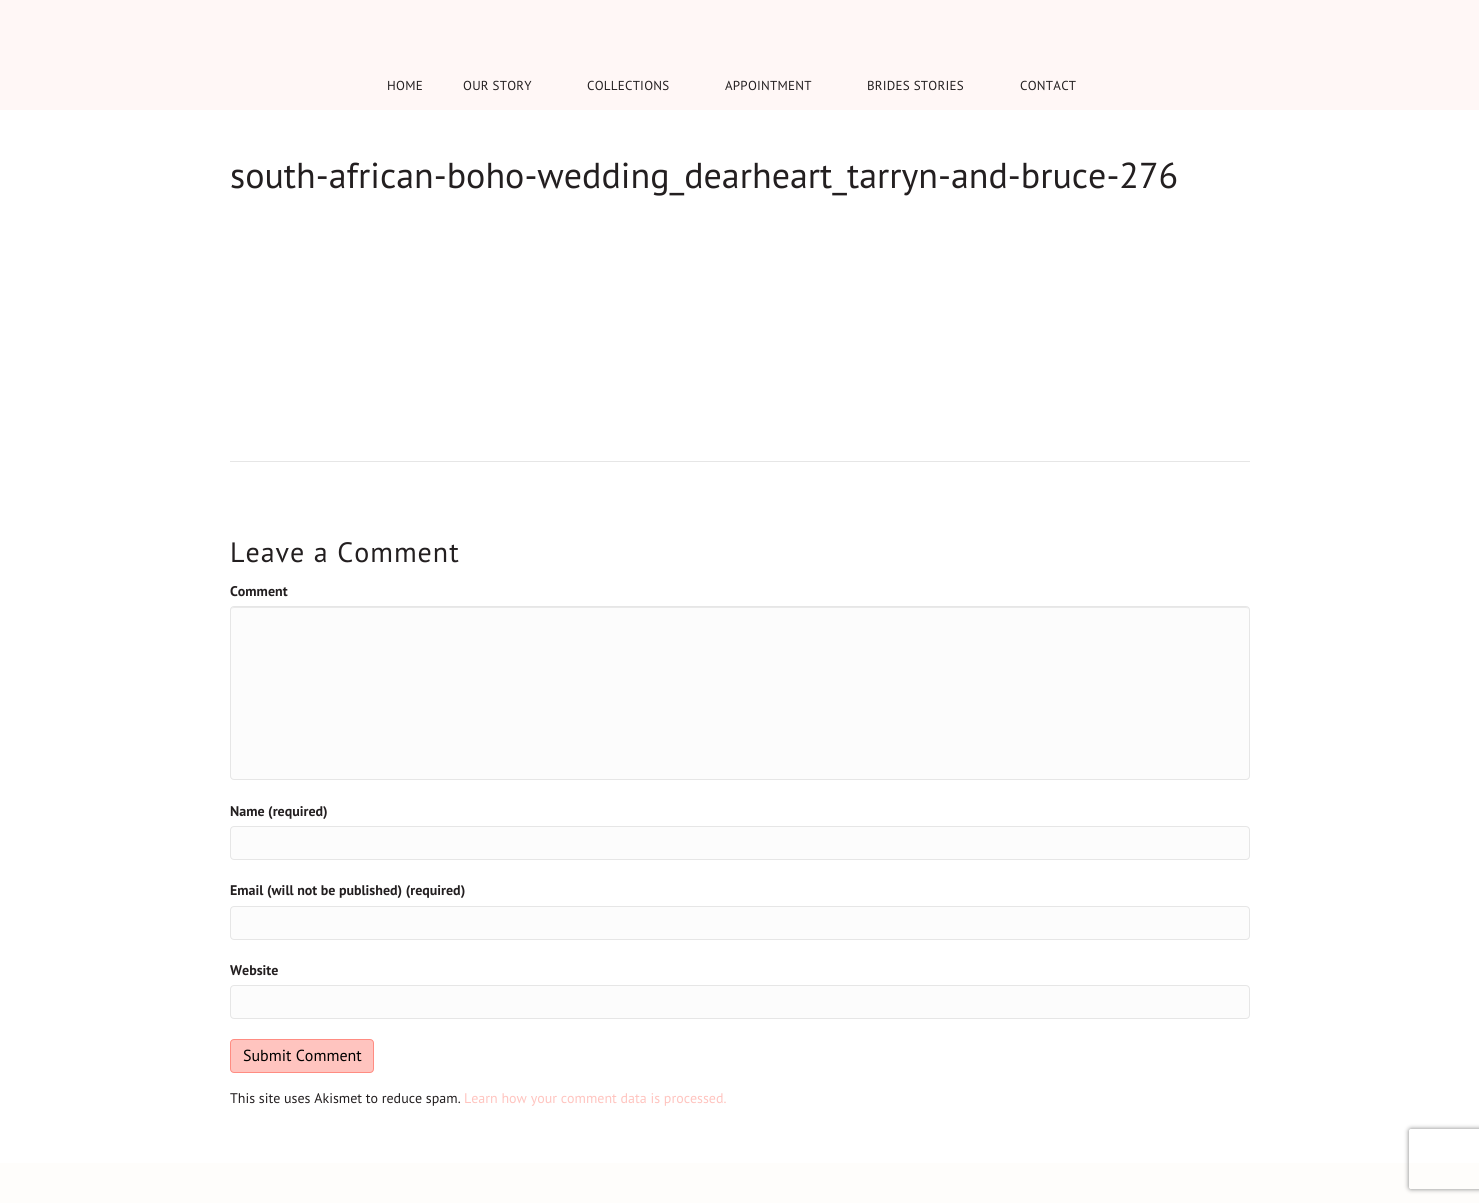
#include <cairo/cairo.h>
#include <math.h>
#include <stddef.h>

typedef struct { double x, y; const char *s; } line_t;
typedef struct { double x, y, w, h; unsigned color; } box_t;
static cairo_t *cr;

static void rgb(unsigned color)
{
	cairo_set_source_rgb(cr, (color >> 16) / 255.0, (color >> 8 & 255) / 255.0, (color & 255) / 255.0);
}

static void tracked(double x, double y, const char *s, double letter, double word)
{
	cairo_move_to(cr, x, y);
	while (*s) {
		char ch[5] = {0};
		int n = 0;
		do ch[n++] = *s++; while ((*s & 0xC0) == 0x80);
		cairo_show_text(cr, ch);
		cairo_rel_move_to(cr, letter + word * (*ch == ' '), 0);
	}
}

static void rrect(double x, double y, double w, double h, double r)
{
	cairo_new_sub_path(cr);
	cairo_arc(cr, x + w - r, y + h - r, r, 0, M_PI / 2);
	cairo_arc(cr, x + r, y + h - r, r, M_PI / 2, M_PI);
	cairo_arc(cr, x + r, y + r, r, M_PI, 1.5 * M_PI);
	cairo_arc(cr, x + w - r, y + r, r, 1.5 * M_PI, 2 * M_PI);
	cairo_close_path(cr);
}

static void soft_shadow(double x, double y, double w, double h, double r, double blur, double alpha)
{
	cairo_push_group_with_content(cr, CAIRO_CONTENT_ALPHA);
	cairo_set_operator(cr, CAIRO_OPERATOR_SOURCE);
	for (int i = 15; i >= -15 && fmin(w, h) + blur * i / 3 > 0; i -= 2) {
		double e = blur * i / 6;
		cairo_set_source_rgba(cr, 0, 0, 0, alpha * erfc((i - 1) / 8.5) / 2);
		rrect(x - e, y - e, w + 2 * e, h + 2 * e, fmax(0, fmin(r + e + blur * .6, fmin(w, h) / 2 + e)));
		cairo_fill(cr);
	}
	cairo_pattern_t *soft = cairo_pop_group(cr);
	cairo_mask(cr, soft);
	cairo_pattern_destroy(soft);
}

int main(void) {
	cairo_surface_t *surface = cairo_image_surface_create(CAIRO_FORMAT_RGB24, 1479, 1203);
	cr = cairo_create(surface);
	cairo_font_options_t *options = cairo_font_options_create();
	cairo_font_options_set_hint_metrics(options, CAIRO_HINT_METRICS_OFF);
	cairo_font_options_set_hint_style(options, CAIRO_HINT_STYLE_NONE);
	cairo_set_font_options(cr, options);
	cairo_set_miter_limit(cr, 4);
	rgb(0xfefdfb);
	cairo_paint(cr);
	{
		static const box_t items[] = {
			{0, 0, 1479, 110, 0xfff7f6},
			{0, 110, 1479, 1053, 0xffffff},
			{230, 461, 1020, 1, 0xe6e6e6},
		};
		for (size_t i = 0; i < sizeof items / sizeof *items; i++) {
			rgb(items[i].color);
			cairo_rectangle(cr, items[i].x, items[i].y, items[i].w, items[i].h);
			cairo_fill(cr);
		}
	}
	rgb(0xfcfcfc);
	rrect(230, 606, 1020, 174, 4);
	cairo_fill(cr);
	rgb(0xe9e9e9);
	cairo_new_path(cr);
	cairo_move_to(cr, 234, 608);
	cairo_line_to(cr, 1246, 608);
	cairo_curve_to(cr, 1248, 608, 1249, 609, 1249, 611);
	cairo_curve_to(cr, 1249, 609, 1248, 607, 1246, 607);
	cairo_line_to(cr, 234, 607);
	cairo_curve_to(cr, 232, 607, 231, 609, 231, 611);
	cairo_curve_to(cr, 231, 609, 232, 608, 234, 608);
	cairo_close_path(cr);
	cairo_fill(cr);
	rrect(230.5, 606.5, 1019, 173, 3.5);
	rgb(0xe6e6e6);
	cairo_set_line_width(cr, 1);
	cairo_stroke(cr);
	rgb(0xfcfcfc);
	rrect(230.5, 826.5, 1019, 33, 3.5);
	cairo_fill_preserve(cr);
	rgb(0xe6e6e6);
	cairo_stroke(cr);
	rgb(0xfcfcfc);
	rrect(230.5, 906.5, 1019, 33, 3.5);
	cairo_fill_preserve(cr);
	rgb(0xe6e6e6);
	cairo_stroke(cr);
	rgb(0xfcfcfc);
	rrect(230.5, 985.5, 1019, 33, 3.5);
	cairo_fill_preserve(cr);
	rgb(0xe6e6e6);
	cairo_stroke(cr);
	rgb(0xffc4bf);
	rrect(230.5, 1039.5, 143, 33, 3.5);
	cairo_fill_preserve(cr);
	rgb(0xff8c82);
	cairo_stroke(cr);
	cairo_save(cr);
	cairo_set_fill_rule(cr, CAIRO_FILL_RULE_EVEN_ODD);
	cairo_new_path(cr);
	cairo_move_to(cr, 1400, 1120);
	cairo_line_to(cr, 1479, 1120);
	cairo_line_to(cr, 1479, 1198);
	cairo_line_to(cr, 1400, 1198);
	cairo_close_path(cr);
	cairo_move_to(cr, 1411, 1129);
	cairo_line_to(cr, 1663, 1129);
	cairo_curve_to(cr, 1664, 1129, 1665, 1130, 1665, 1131);
	cairo_line_to(cr, 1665, 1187);
	cairo_curve_to(cr, 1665, 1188, 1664, 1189, 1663, 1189);
	cairo_line_to(cr, 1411, 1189);
	cairo_curve_to(cr, 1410, 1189, 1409, 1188, 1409, 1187);
	cairo_line_to(cr, 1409, 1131);
	cairo_curve_to(cr, 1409, 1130, 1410, 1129, 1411, 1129);
	cairo_close_path(cr);
	cairo_clip(cr);
	rgb(0x808080);
	soft_shadow(1409, 1129, 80, 60, 2, 2.5, 1);
	cairo_restore(cr);
	cairo_select_font_face(cr, "PT Sans", CAIRO_FONT_SLANT_NORMAL, CAIRO_FONT_WEIGHT_NORMAL);
	cairo_set_font_size(cr, 13);
	rgb(0x231f20);
	{
		static const line_t items[] = {
			{387, 90, "HOME"},
			{463, 90, "OUR STORY"},
			{587, 90, "COLLECTIONS"},
			{725, 90, "APPOINTMENT"},
			{867, 90, "BRIDES STORIES"},
			{1020, 90, "CONTACT"},
		};
		for (size_t i = 0; i < sizeof items / sizeof *items; i++) {
			tracked(items[i].x, items[i].y, items[i].s, 0.25, 0);
		}
	}
	cairo_set_font_size(cr, 36);
	cairo_move_to(cr, 230, 188);
	cairo_show_text(cr, "south-african-boho-wedding_dearheart_tarryn-and-bruce-276");
	cairo_set_font_size(cr, 28);
	tracked(230, 562, "Leave a Comment", 1, 0);
	cairo_select_font_face(cr, "PT Sans", CAIRO_FONT_SLANT_NORMAL, CAIRO_FONT_WEIGHT_BOLD);
	cairo_set_font_size(cr, 14);
	{
		static const line_t items[] = {
			{230, 596, "Comment"},
			{230, 816, "Name (required)"},
			{230, 895, "Email (will not be published) (required)"},
			{230, 975, "Website"},
		};
		for (size_t i = 0; i < sizeof items / sizeof *items; i++) {
			cairo_move_to(cr, items[i].x, items[i].y);
			cairo_show_text(cr, items[i].s);
		}
	}
	cairo_select_font_face(cr, "PT Sans", CAIRO_FONT_SLANT_NORMAL, CAIRO_FONT_WEIGHT_NORMAL);
	cairo_set_font_size(cr, 16);
	rgb(0x000000);
	cairo_move_to(cr, 243, 1061);
	cairo_show_text(cr, "Submit Comment");
	cairo_set_font_size(cr, 14);
	rgb(0x231f20);
	cairo_move_to(cr, 230, 1103);
	cairo_show_text(cr, "This site uses Akismet to reduce spam.");
	rgb(0xffc4bf);
	cairo_move_to(cr, 464, 1103);
	cairo_show_text(cr, "Learn how your comment data is processed.");
	cairo_surface_write_to_png(surface, "page.png");
	cairo_font_options_destroy(options);
	cairo_destroy(cr);
	cairo_surface_destroy(surface);
	return 0;
}
